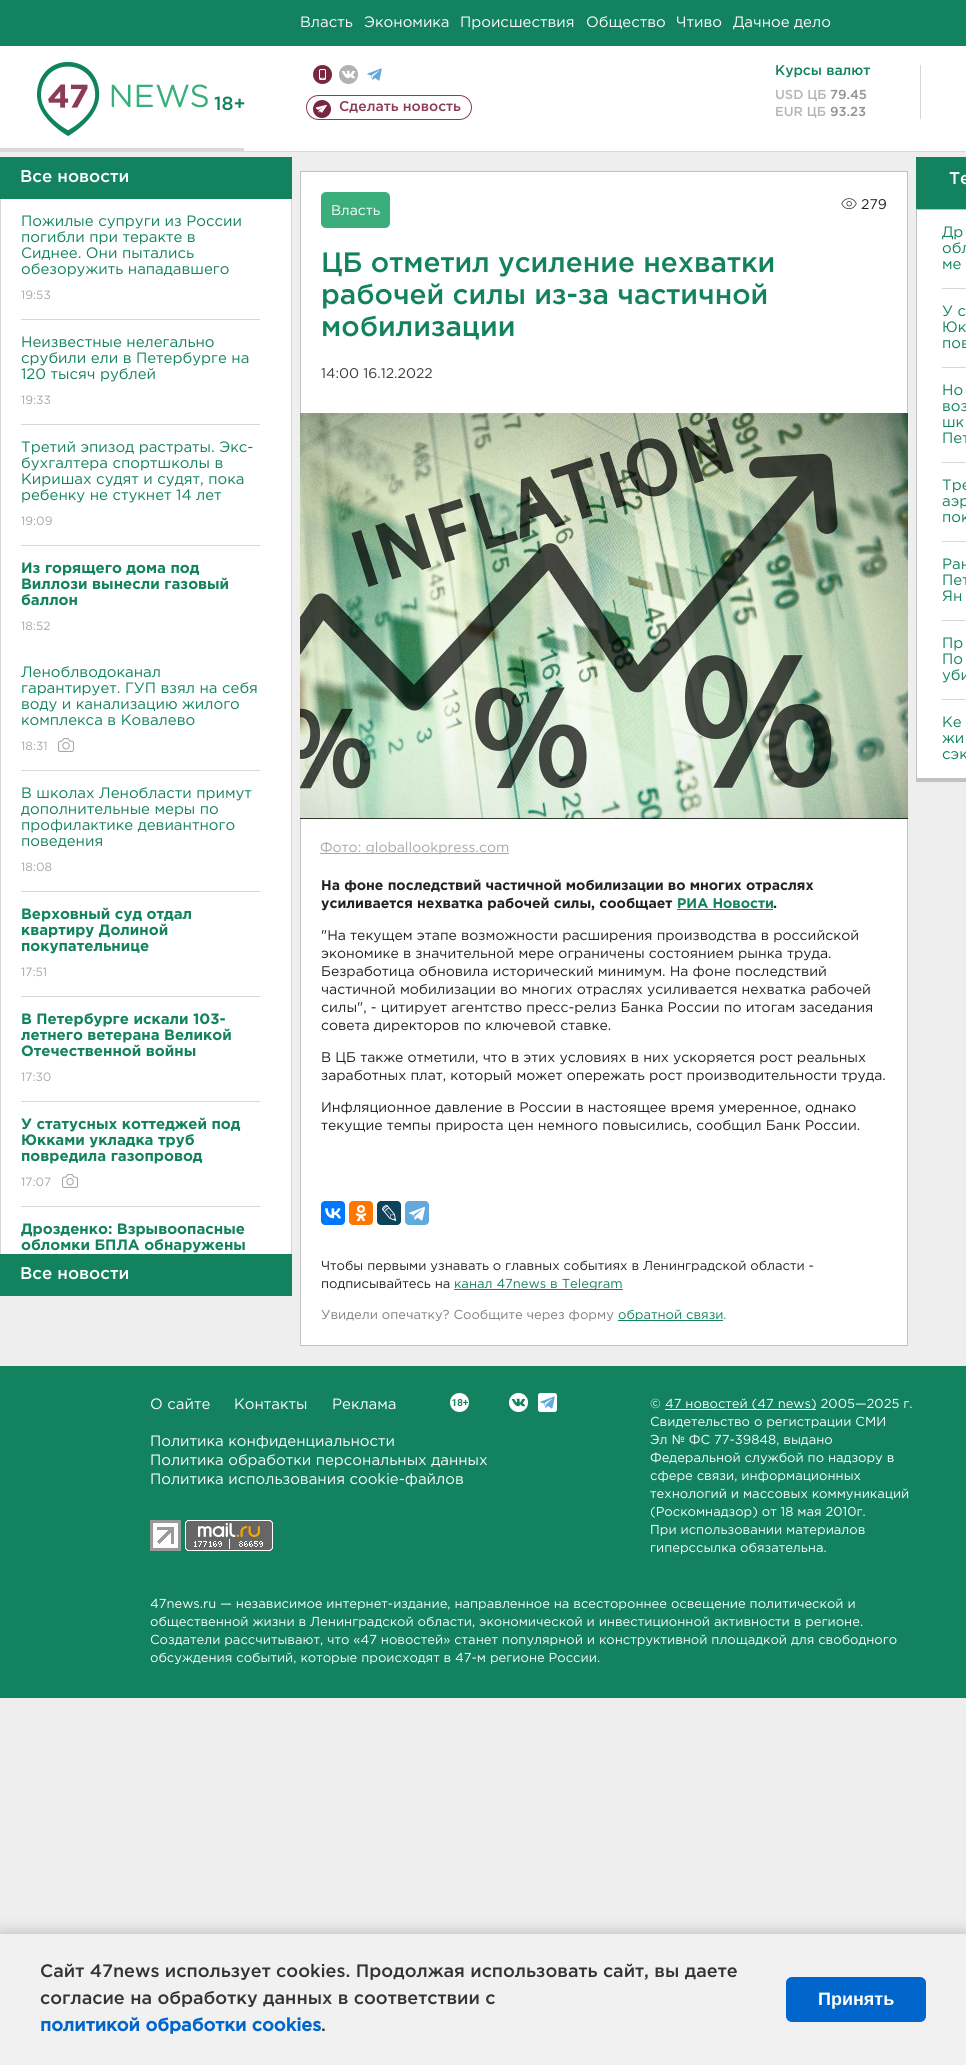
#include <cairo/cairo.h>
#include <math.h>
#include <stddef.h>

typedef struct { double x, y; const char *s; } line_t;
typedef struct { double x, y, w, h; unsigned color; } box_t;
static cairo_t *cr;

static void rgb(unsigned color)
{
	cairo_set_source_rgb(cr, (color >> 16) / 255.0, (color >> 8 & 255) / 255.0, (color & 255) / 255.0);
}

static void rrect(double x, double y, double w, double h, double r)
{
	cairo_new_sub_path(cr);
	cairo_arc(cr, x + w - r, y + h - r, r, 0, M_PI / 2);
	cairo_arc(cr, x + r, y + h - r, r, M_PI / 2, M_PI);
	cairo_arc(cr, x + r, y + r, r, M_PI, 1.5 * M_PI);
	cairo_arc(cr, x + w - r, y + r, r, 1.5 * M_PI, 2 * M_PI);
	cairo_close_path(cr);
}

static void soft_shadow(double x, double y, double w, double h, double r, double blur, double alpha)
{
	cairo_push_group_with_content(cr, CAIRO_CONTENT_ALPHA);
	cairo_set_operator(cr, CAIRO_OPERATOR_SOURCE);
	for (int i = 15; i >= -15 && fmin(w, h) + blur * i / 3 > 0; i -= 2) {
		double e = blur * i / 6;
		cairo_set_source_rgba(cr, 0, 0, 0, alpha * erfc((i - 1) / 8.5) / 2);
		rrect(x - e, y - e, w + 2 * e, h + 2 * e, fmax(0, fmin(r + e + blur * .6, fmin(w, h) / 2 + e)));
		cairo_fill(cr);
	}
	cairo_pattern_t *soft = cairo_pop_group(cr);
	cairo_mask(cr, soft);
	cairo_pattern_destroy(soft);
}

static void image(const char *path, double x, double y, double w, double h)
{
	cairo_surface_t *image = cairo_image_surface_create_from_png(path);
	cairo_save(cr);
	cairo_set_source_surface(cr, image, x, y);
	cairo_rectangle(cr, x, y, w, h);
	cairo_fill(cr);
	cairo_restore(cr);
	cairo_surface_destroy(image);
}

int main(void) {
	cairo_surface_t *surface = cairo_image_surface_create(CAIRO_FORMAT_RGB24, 966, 2065);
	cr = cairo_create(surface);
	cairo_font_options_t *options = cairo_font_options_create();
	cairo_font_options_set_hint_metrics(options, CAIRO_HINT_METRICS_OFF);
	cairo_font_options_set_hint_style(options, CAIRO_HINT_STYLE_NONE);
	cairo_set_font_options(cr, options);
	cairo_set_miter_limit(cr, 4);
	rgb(0xeeeeee);
	cairo_paint(cr);
	{
		static const box_t items[] = {
			{0, 0, 966, 46, 0x13825f},
			{0, 46, 966, 105, 0xffffff},
			{0, 151, 966, 1, 0xdad9d9},
			{0, 148, 244, 3, 0xdad9d9},
		};
		for (size_t i = 0; i < sizeof items / sizeof *items; i++) {
			rgb(items[i].color);
			cairo_rectangle(cr, items[i].x, items[i].y, items[i].w, items[i].h);
			cairo_fill(cr);
		}
	}
	image("img/1.png", 37, 62, 171, 74);
	rgb(0xd6d6d6);
	cairo_rectangle(cr, 920, 65, 1, 54);
	cairo_fill(cr);
	image("img/2.png", 313, 65, 19, 19);
	image("img/3.png", 339, 65, 19, 19);
	image("img/4.png", 367, 68, 15, 13);
	image("img/5.png", 313, 100, 18, 18);
	rrect(306.5, 95.5, 165, 24, 12);
	rgb(0x8c3b52);
	cairo_set_line_width(cr, 1);
	cairo_stroke(cr);
	{
		static const box_t items[] = {
			{0, 157, 292, 42, 0x13825f},
			{1, 199, 290, 1055, 0xffffff},
			{291, 199, 1, 1055, 0xd6d6d6},
			{0, 199, 1, 1055, 0xd6d6d6},
			{21, 319, 239, 1, 0xd8d8d8},
			{21, 424, 239, 1, 0xd8d8d8},
			{21, 545, 239, 1, 0xd8d8d8},
			{21, 770, 239, 1, 0xd8d8d8},
		};
		for (size_t i = 0; i < sizeof items / sizeof *items; i++) {
			rgb(items[i].color);
			cairo_rectangle(cr, items[i].x, items[i].y, items[i].w, items[i].h);
			cairo_fill(cr);
		}
	}
	image("img/6.png", 58, 738, 16, 14);
	{
		static const box_t items[] = {
			{21, 891, 239, 1, 0xd8d8d8},
			{21, 996, 239, 1, 0xd8d8d8},
			{21, 1101, 239, 1, 0xd8d8d8},
			{21, 1206, 239, 1, 0xd8d8d8},
		};
		for (size_t i = 0; i < sizeof items / sizeof *items; i++) {
			rgb(items[i].color);
			cairo_rectangle(cr, items[i].x, items[i].y, items[i].w, items[i].h);
			cairo_fill(cr);
		}
	}
	image("img/6.png", 62, 1174, 16, 14);
	rgb(0x13825f);
	cairo_rectangle(cr, 0, 1254, 292, 42);
	cairo_fill(cr);
	rgb(0xffffff);
	cairo_rectangle(cr, 300.5, 171.5, 607, 1174);
	cairo_fill_preserve(cr);
	rgb(0xc2c2c2);
	cairo_stroke(cr);
	rgb(0x3bae7c);
	rrect(321, 192, 69, 36, 5);
	cairo_fill(cr);
	image("img/7.png", 841, 198, 16, 11);
	image("img/8.png", 300, 413, 608, 406);
	rgb(0xa7a7a7);
	cairo_rectangle(cr, 320, 853, 189, 1);
	cairo_fill(cr);
	rgb(0x13825f);
	cairo_rectangle(cr, 677, 909, 96, 1);
	cairo_fill(cr);
	rgb(0x0077ff);
	rrect(321, 1201, 24, 24, 4);
	cairo_fill(cr);
	image("img/9.png", 325, 1208, 16, 11);
	rgb(0xff7700);
	rrect(349, 1201, 24, 24, 4);
	cairo_fill(cr);
	image("img/10.png", 355, 1205, 12, 16);
	rgb(0x0d425a);
	rrect(377, 1201, 24, 24, 4);
	cairo_fill(cr);
	image("img/11.png", 382, 1205, 15, 16);
	rgb(0x64a9dc);
	rrect(405, 1201, 24, 24, 4);
	cairo_fill(cr);
	image("img/12.png", 409, 1207, 16, 14);
	{
		static const box_t items[] = {
			{454, 1289, 169, 1, 0x13825f},
			{618, 1320, 105, 1, 0x13825f},
			{916, 157, 50, 52, 0x13825f},
			{917, 210, 49, 568, 0xffffff},
			{916, 209, 50, 1, 0xc2c2c2},
			{916, 778, 50, 4, 0xc2c2c2},
			{916, 209, 1, 573, 0xc2c2c2},
			{942, 288, 24, 1, 0xd8d8d8},
			{942, 367, 24, 1, 0xd8d8d8},
			{942, 462, 24, 1, 0xd8d8d8},
			{942, 541, 24, 1, 0xd8d8d8},
			{942, 620, 24, 1, 0xd8d8d8},
			{942, 699, 24, 1, 0xd8d8d8},
			{0, 1366, 966, 332, 0x13825f},
		};
		for (size_t i = 0; i < sizeof items / sizeof *items; i++) {
			rgb(items[i].color);
			cairo_rectangle(cr, items[i].x, items[i].y, items[i].w, items[i].h);
			cairo_fill(cr);
		}
	}
	image("img/13.png", 450, 1393, 19, 19);
	image("img/14.png", 509, 1393, 19, 19);
	image("img/15.png", 538, 1393, 19, 19);
	image("img/16.png", 150, 1520, 31, 31);
	image("img/17.png", 185, 1520, 88, 31);
	rgb(0xffffff);
	cairo_rectangle(cr, 665, 1409, 151, 1);
	cairo_fill(cr);
	rgb(0x000000);
	soft_shadow(0, 1932, 966, 131, 0, 7.5, 0.2);
	rgb(0xf1f1f1);
	cairo_rectangle(cr, 0, 1934, 966, 131);
	cairo_fill(cr);
	rgb(0x0066cc);
	rrect(786, 1977, 140, 45, 6);
	cairo_fill(cr);
	cairo_select_font_face(cr, "Gotham", CAIRO_FONT_SLANT_NORMAL, CAIRO_FONT_WEIGHT_NORMAL);
	cairo_set_font_size(cr, 15);
	rgb(0xffffff);
	{
		static const line_t items[] = {
			{300, 27, "Власть"},
			{364, 27, "Экономика"},
			{460, 27, "Происшествия"},
			{586, 27, "Общество"},
			{676, 27, "Чтиво"},
			{733, 27, "Дачное дело"},
		};
		for (size_t i = 0; i < sizeof items / sizeof *items; i++) {
			cairo_move_to(cr, items[i].x, items[i].y);
			cairo_show_text(cr, items[i].s);
		}
	}
	cairo_select_font_face(cr, "Gotham Medium", CAIRO_FONT_SLANT_NORMAL, CAIRO_FONT_WEIGHT_NORMAL);
	cairo_set_font_size(cr, 14);
	rgb(0x13825f);
	cairo_move_to(cr, 775, 75);
	cairo_show_text(cr, "Курсы валют");
	cairo_set_font_size(cr, 13);
	rgb(0xb5b5b5);
	cairo_move_to(cr, 775, 99);
	cairo_show_text(cr, "USD ЦБ");
	rgb(0x919191);
	cairo_move_to(cr, 830, 99);
	cairo_show_text(cr, "79.45");
	rgb(0xb5b5b5);
	cairo_move_to(cr, 775, 116);
	cairo_show_text(cr, "EUR ЦБ");
	rgb(0x919191);
	cairo_move_to(cr, 830, 116);
	cairo_show_text(cr, "93.23");
	cairo_set_font_size(cr, 19);
	rgb(0x13825f);
	cairo_move_to(cr, 214, 110);
	cairo_show_text(cr, "18+");
	cairo_set_font_size(cr, 14);
	rgb(0x8c3b52);
	cairo_move_to(cr, 339, 111);
	cairo_show_text(cr, "Сделать новость");
	cairo_set_font_size(cr, 17);
	rgb(0xffffff);
	cairo_move_to(cr, 20, 182);
	cairo_show_text(cr, "Все новости");
	cairo_select_font_face(cr, "Gotham", CAIRO_FONT_SLANT_NORMAL, CAIRO_FONT_WEIGHT_NORMAL);
	cairo_set_font_size(cr, 15);
	rgb(0x13825f);
	{
		static const line_t items[] = {
			{21, 226, "Пожилые супруги из России"},
			{21, 242, "погибли при теракте в"},
			{21, 258, "Сиднее. Они пытались"},
			{21, 274, "обезоружить нападавшего"},
		};
		for (size_t i = 0; i < sizeof items / sizeof *items; i++) {
			cairo_move_to(cr, items[i].x, items[i].y);
			cairo_show_text(cr, items[i].s);
		}
	}
	cairo_set_font_size(cr, 12);
	rgb(0xa7a7a7);
	cairo_move_to(cr, 21, 299);
	cairo_show_text(cr, "19:53");
	cairo_set_font_size(cr, 15);
	rgb(0x13825f);
	{
		static const line_t items[] = {
			{21, 347, "Неизвестные нелегально"},
			{21, 363, "срубили ели в Петербурге на"},
			{21, 379, "120 тысяч рублей"},
		};
		for (size_t i = 0; i < sizeof items / sizeof *items; i++) {
			cairo_move_to(cr, items[i].x, items[i].y);
			cairo_show_text(cr, items[i].s);
		}
	}
	cairo_set_font_size(cr, 12);
	rgb(0xa7a7a7);
	cairo_move_to(cr, 21, 404);
	cairo_show_text(cr, "19:33");
	cairo_set_font_size(cr, 15);
	rgb(0x13825f);
	{
		static const line_t items[] = {
			{21, 452, "Третий эпизод растраты. Экс-"},
			{21, 468, "бухгалтера спортшколы в"},
			{21, 484, "Киришах судят и судят, пока"},
			{21, 500, "ребенку не стукнет 14 лет"},
		};
		for (size_t i = 0; i < sizeof items / sizeof *items; i++) {
			cairo_move_to(cr, items[i].x, items[i].y);
			cairo_show_text(cr, items[i].s);
		}
	}
	cairo_set_font_size(cr, 12);
	rgb(0xa7a7a7);
	cairo_move_to(cr, 21, 525);
	cairo_show_text(cr, "19:09");
	cairo_select_font_face(cr, "Gotham", CAIRO_FONT_SLANT_NORMAL, CAIRO_FONT_WEIGHT_BOLD);
	cairo_set_font_size(cr, 15);
	rgb(0x13825f);
	{
		static const line_t items[] = {
			{21, 573, "Из горящего дома под"},
			{21, 589, "Виллози вынесли газовый"},
			{21, 605, "баллон"},
		};
		for (size_t i = 0; i < sizeof items / sizeof *items; i++) {
			cairo_move_to(cr, items[i].x, items[i].y);
			cairo_show_text(cr, items[i].s);
		}
	}
	cairo_select_font_face(cr, "Gotham", CAIRO_FONT_SLANT_NORMAL, CAIRO_FONT_WEIGHT_NORMAL);
	cairo_set_font_size(cr, 12);
	rgb(0xa7a7a7);
	cairo_move_to(cr, 21, 630);
	cairo_show_text(cr, "18:52");
	cairo_set_font_size(cr, 15);
	rgb(0x13825f);
	{
		static const line_t items[] = {
			{21, 677, "Леноблводоканал"},
			{21, 693, "гарантирует. ГУП взял на себя"},
			{21, 709, "воду и канализацию жилого"},
			{21, 725, "комплекса в Ковалево"},
		};
		for (size_t i = 0; i < sizeof items / sizeof *items; i++) {
			cairo_move_to(cr, items[i].x, items[i].y);
			cairo_show_text(cr, items[i].s);
		}
	}
	cairo_set_font_size(cr, 12);
	rgb(0xa7a7a7);
	cairo_move_to(cr, 21, 750);
	cairo_show_text(cr, "18:31");
	cairo_set_font_size(cr, 15);
	rgb(0x13825f);
	{
		static const line_t items[] = {
			{21, 798, "В школах Ленобласти примут"},
			{21, 814, "дополнительные меры по"},
			{21, 830, "профилактике девиантного"},
			{21, 846, "поведения"},
		};
		for (size_t i = 0; i < sizeof items / sizeof *items; i++) {
			cairo_move_to(cr, items[i].x, items[i].y);
			cairo_show_text(cr, items[i].s);
		}
	}
	cairo_set_font_size(cr, 12);
	rgb(0xa7a7a7);
	cairo_move_to(cr, 21, 871);
	cairo_show_text(cr, "18:08");
	cairo_select_font_face(cr, "Gotham", CAIRO_FONT_SLANT_NORMAL, CAIRO_FONT_WEIGHT_BOLD);
	cairo_set_font_size(cr, 15);
	rgb(0x13825f);
	{
		static const line_t items[] = {
			{21, 919, "Верховный суд отдал"},
			{21, 935, "квартиру Долиной"},
			{21, 951, "покупательнице"},
		};
		for (size_t i = 0; i < sizeof items / sizeof *items; i++) {
			cairo_move_to(cr, items[i].x, items[i].y);
			cairo_show_text(cr, items[i].s);
		}
	}
	cairo_select_font_face(cr, "Gotham", CAIRO_FONT_SLANT_NORMAL, CAIRO_FONT_WEIGHT_NORMAL);
	cairo_set_font_size(cr, 12);
	rgb(0xa7a7a7);
	cairo_move_to(cr, 21, 976);
	cairo_show_text(cr, "17:51");
	cairo_select_font_face(cr, "Gotham", CAIRO_FONT_SLANT_NORMAL, CAIRO_FONT_WEIGHT_BOLD);
	cairo_set_font_size(cr, 15);
	rgb(0x13825f);
	{
		static const line_t items[] = {
			{21, 1024, "В Петербурге искали 103-"},
			{21, 1040, "летнего ветерана Великой"},
			{21, 1056, "Отечественной войны"},
		};
		for (size_t i = 0; i < sizeof items / sizeof *items; i++) {
			cairo_move_to(cr, items[i].x, items[i].y);
			cairo_show_text(cr, items[i].s);
		}
	}
	cairo_select_font_face(cr, "Gotham", CAIRO_FONT_SLANT_NORMAL, CAIRO_FONT_WEIGHT_NORMAL);
	cairo_set_font_size(cr, 12);
	rgb(0xa7a7a7);
	cairo_move_to(cr, 21, 1081);
	cairo_show_text(cr, "17:30");
	cairo_select_font_face(cr, "Gotham", CAIRO_FONT_SLANT_NORMAL, CAIRO_FONT_WEIGHT_BOLD);
	cairo_set_font_size(cr, 15);
	rgb(0x13825f);
	{
		static const line_t items[] = {
			{21, 1129, "У статусных коттеджей под"},
			{21, 1145, "Юкками укладка труб"},
			{21, 1161, "повредила газопровод"},
		};
		for (size_t i = 0; i < sizeof items / sizeof *items; i++) {
			cairo_move_to(cr, items[i].x, items[i].y);
			cairo_show_text(cr, items[i].s);
		}
	}
	cairo_select_font_face(cr, "Gotham", CAIRO_FONT_SLANT_NORMAL, CAIRO_FONT_WEIGHT_NORMAL);
	cairo_set_font_size(cr, 12);
	rgb(0xa7a7a7);
	cairo_move_to(cr, 21, 1186);
	cairo_show_text(cr, "17:07");
	cairo_select_font_face(cr, "Gotham", CAIRO_FONT_SLANT_NORMAL, CAIRO_FONT_WEIGHT_BOLD);
	cairo_set_font_size(cr, 15);
	rgb(0x13825f);
	cairo_move_to(cr, 21, 1234);
	cairo_show_text(cr, "Дрозденко: Взрывоопасные");
	cairo_move_to(cr, 21, 1250);
	cairo_show_text(cr, "обломки БПЛА обнаружены");
	cairo_select_font_face(cr, "Gotham Medium", CAIRO_FONT_SLANT_NORMAL, CAIRO_FONT_WEIGHT_NORMAL);
	cairo_set_font_size(cr, 17);
	rgb(0xffffff);
	cairo_move_to(cr, 20, 1279);
	cairo_show_text(cr, "Все новости");
	cairo_select_font_face(cr, "Gotham", CAIRO_FONT_SLANT_NORMAL, CAIRO_FONT_WEIGHT_NORMAL);
	cairo_set_font_size(cr, 14);
	cairo_move_to(cr, 331, 215);
	cairo_show_text(cr, "Власть");
	rgb(0x222222);
	cairo_move_to(cr, 861, 209);
	cairo_show_text(cr, "279");
	cairo_select_font_face(cr, "Gotham Medium", CAIRO_FONT_SLANT_NORMAL, CAIRO_FONT_WEIGHT_NORMAL);
	cairo_set_font_size(cr, 28);
	rgb(0x13825f);
	{
		static const line_t items[] = {
			{321, 272, "ЦБ отметил усиление нехватки"},
			{321, 304, "рабочей силы из-за частичной"},
			{321, 336, "мобилизации"},
		};
		for (size_t i = 0; i < sizeof items / sizeof *items; i++) {
			cairo_move_to(cr, items[i].x, items[i].y);
			cairo_show_text(cr, items[i].s);
		}
	}
	cairo_select_font_face(cr, "Gotham", CAIRO_FONT_SLANT_NORMAL, CAIRO_FONT_WEIGHT_NORMAL);
	cairo_set_font_size(cr, 14);
	rgb(0x3c3c3c);
	cairo_move_to(cr, 321, 378);
	cairo_show_text(cr, "14:00 16.12.2022");
	rgb(0xa7a7a7);
	cairo_move_to(cr, 320, 852);
	cairo_show_text(cr, "Фото: globallookpress.com");
	cairo_select_font_face(cr, "Gotham", CAIRO_FONT_SLANT_NORMAL, CAIRO_FONT_WEIGHT_BOLD);
	rgb(0x222222);
	cairo_move_to(cr, 321, 890);
	cairo_show_text(cr, "На фоне последствий частичной мобилизации во многих отраслях");
	cairo_move_to(cr, 321, 908);
	cairo_show_text(cr, "усиливается нехватка рабочей силы, сообщает");
	rgb(0x13825f);
	cairo_move_to(cr, 677, 908);
	cairo_show_text(cr, "РИА Новости");
	rgb(0x222222);
	cairo_move_to(cr, 773, 908);
	cairo_show_text(cr, ".");
	cairo_select_font_face(cr, "Gotham", CAIRO_FONT_SLANT_NORMAL, CAIRO_FONT_WEIGHT_NORMAL);
	{
		static const line_t items[] = {
			{321, 940, "\"На текущем этапе возможности расширения производства в российской"},
			{321, 958, "экономике в значительной мере ограничены состоянием рынка труда."},
			{321, 976, "Безработица обновила исторический минимум. На фоне последствий"},
			{321, 994, "частичной мобилизации во многих отраслях усиливается нехватка рабочей"},
			{321, 1012, "силы\", - цитирует агентство пресс-релиз Банка России по итогам заседания"},
			{321, 1030, "совета директоров по ключевой ставке."},
			{321, 1062, "В ЦБ также отметили, что в этих условиях в них ускоряется рост реальных"},
			{321, 1080, "заработных плат, который может опережать рост производительности труда."},
			{321, 1112, "Инфляционное давление в России в настоящее время умеренное, однако"},
			{321, 1130, "текущие темпы прироста цен немного повысились, сообщил Банк России."},
		};
		for (size_t i = 0; i < sizeof items / sizeof *items; i++) {
			cairo_move_to(cr, items[i].x, items[i].y);
			cairo_show_text(cr, items[i].s);
		}
	}
	cairo_set_font_size(cr, 13);
	cairo_move_to(cr, 321, 1270);
	cairo_show_text(cr, "Чтобы первыми узнавать о главных событиях в Ленинградской области -");
	cairo_move_to(cr, 321, 1288);
	cairo_show_text(cr, "подписывайтесь на");
	rgb(0x13825f);
	cairo_move_to(cr, 454, 1288);
	cairo_show_text(cr, "канал 47news в Telegram");
	rgb(0x808080);
	cairo_move_to(cr, 321, 1319);
	cairo_show_text(cr, "Увидели опечатку? Сообщите через форму");
	rgb(0x13825f);
	cairo_move_to(cr, 618, 1319);
	cairo_show_text(cr, "обратной связи");
	rgb(0x808080);
	cairo_move_to(cr, 723, 1319);
	cairo_show_text(cr, ".");
	cairo_select_font_face(cr, "Gotham Medium", CAIRO_FONT_SLANT_NORMAL, CAIRO_FONT_WEIGHT_NORMAL);
	cairo_set_font_size(cr, 17);
	rgb(0xffffff);
	cairo_move_to(cr, 949, 184);
	cairo_show_text(cr, "Те");
	cairo_select_font_face(cr, "Gotham", CAIRO_FONT_SLANT_NORMAL, CAIRO_FONT_WEIGHT_NORMAL);
	cairo_set_font_size(cr, 15);
	rgb(0x13825f);
	{
		static const line_t items[] = {
			{942, 237, "Др"},
			{942, 253, "обл"},
			{942, 269, "ме"},
			{942, 316, "У с"},
			{942, 332, "Юк"},
			{942, 348, "пов"},
			{942, 395, "Но"},
			{942, 411, "воз"},
			{942, 427, "шк"},
			{942, 443, "Пет"},
			{942, 490, "Тре"},
			{942, 506, "аэр"},
			{942, 522, "пок"},
			{942, 569, "Ран"},
			{942, 585, "Пет"},
			{942, 601, "Ян"},
			{942, 648, "Пр"},
			{942, 664, "По"},
			{942, 680, "уби"},
			{942, 727, "Ке"},
			{942, 743, "жи"},
			{942, 759, "сэк"},
		};
		for (size_t i = 0; i < sizeof items / sizeof *items; i++) {
			cairo_move_to(cr, items[i].x, items[i].y);
			cairo_show_text(cr, items[i].s);
		}
	}
	rgb(0xffffff);
	{
		static const line_t items[] = {
			{150, 1409, "О сайте"},
			{234, 1409, "Контакты"},
			{332, 1409, "Реклама"},
			{150, 1446, "Политика конфиденциальности"},
			{150, 1465, "Политика обработки персональных данных"},
			{150, 1484, "Политика использования cookie-файлов"},
		};
		for (size_t i = 0; i < sizeof items / sizeof *items; i++) {
			cairo_move_to(cr, items[i].x, items[i].y);
			cairo_show_text(cr, items[i].s);
		}
	}
	cairo_set_font_size(cr, 13);
	{
		static const line_t items[] = {
			{650, 1408, "©"},
			{665, 1408, "47 новостей (47 news) 2005—2025 г."},
			{650, 1426, "Свидетельство о регистрации СМИ"},
			{650, 1444, "Эл № ФС 77-39848, выдано"},
			{650, 1462, "Федеральной службой по надзору в"},
			{650, 1480, "сфере связи, информационных"},
			{650, 1498, "технологий и массовых коммуникаций"},
			{650, 1516, "(Роскомнадзор) от 18 мая 2010г."},
			{650, 1534, "При использовании материалов"},
			{650, 1552, "гиперссылка обязательна."},
			{150, 1608, "47news.ru — независимое интернет-издание, направленное на всестороннее освещение политической и"},
			{150, 1626, "общественной жизни в Ленинградской области, экономической и инвестиционной активности в регионе."},
			{150, 1644, "Создатели рассчитывают, что «47 новостей» станет популярной и конструктивной площадкой для свободного"},
			{150, 1662, "обсуждения событий, которые происходят в 47-м регионе России."},
		};
		for (size_t i = 0; i < sizeof items / sizeof *items; i++) {
			cairo_move_to(cr, items[i].x, items[i].y);
			cairo_show_text(cr, items[i].s);
		}
	}
	cairo_select_font_face(cr, "Gotham Medium", CAIRO_FONT_SLANT_NORMAL, CAIRO_FONT_WEIGHT_NORMAL);
	cairo_set_font_size(cr, 18);
	rgb(0x333333);
	cairo_move_to(cr, 40, 1977);
	cairo_show_text(cr, "Сайт 47news использует cookies. Продолжая использовать сайт, вы даете");
	cairo_move_to(cr, 40, 2004);
	cairo_show_text(cr, "согласие на обработку данных в соответствии с");
	cairo_select_font_face(cr, "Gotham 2", CAIRO_FONT_SLANT_NORMAL, CAIRO_FONT_WEIGHT_BOLD);
	rgb(0x0066cc);
	cairo_move_to(cr, 40, 2031);
	cairo_show_text(cr, "политикой обработки cookies");
	cairo_select_font_face(cr, "Gotham Medium", CAIRO_FONT_SLANT_NORMAL, CAIRO_FONT_WEIGHT_NORMAL);
	rgb(0x333333);
	cairo_move_to(cr, 321, 2031);
	cairo_show_text(cr, ".");
	cairo_select_font_face(cr, "Liberation Sans", CAIRO_FONT_SLANT_NORMAL, CAIRO_FONT_WEIGHT_BOLD);
	rgb(0xffffff);
	cairo_move_to(cr, 818, 2005);
	cairo_show_text(cr, "Принять");
	cairo_surface_write_to_png(surface, "page.png");
	cairo_font_options_destroy(options);
	cairo_destroy(cr);
	cairo_surface_destroy(surface);
	return 0;
}
